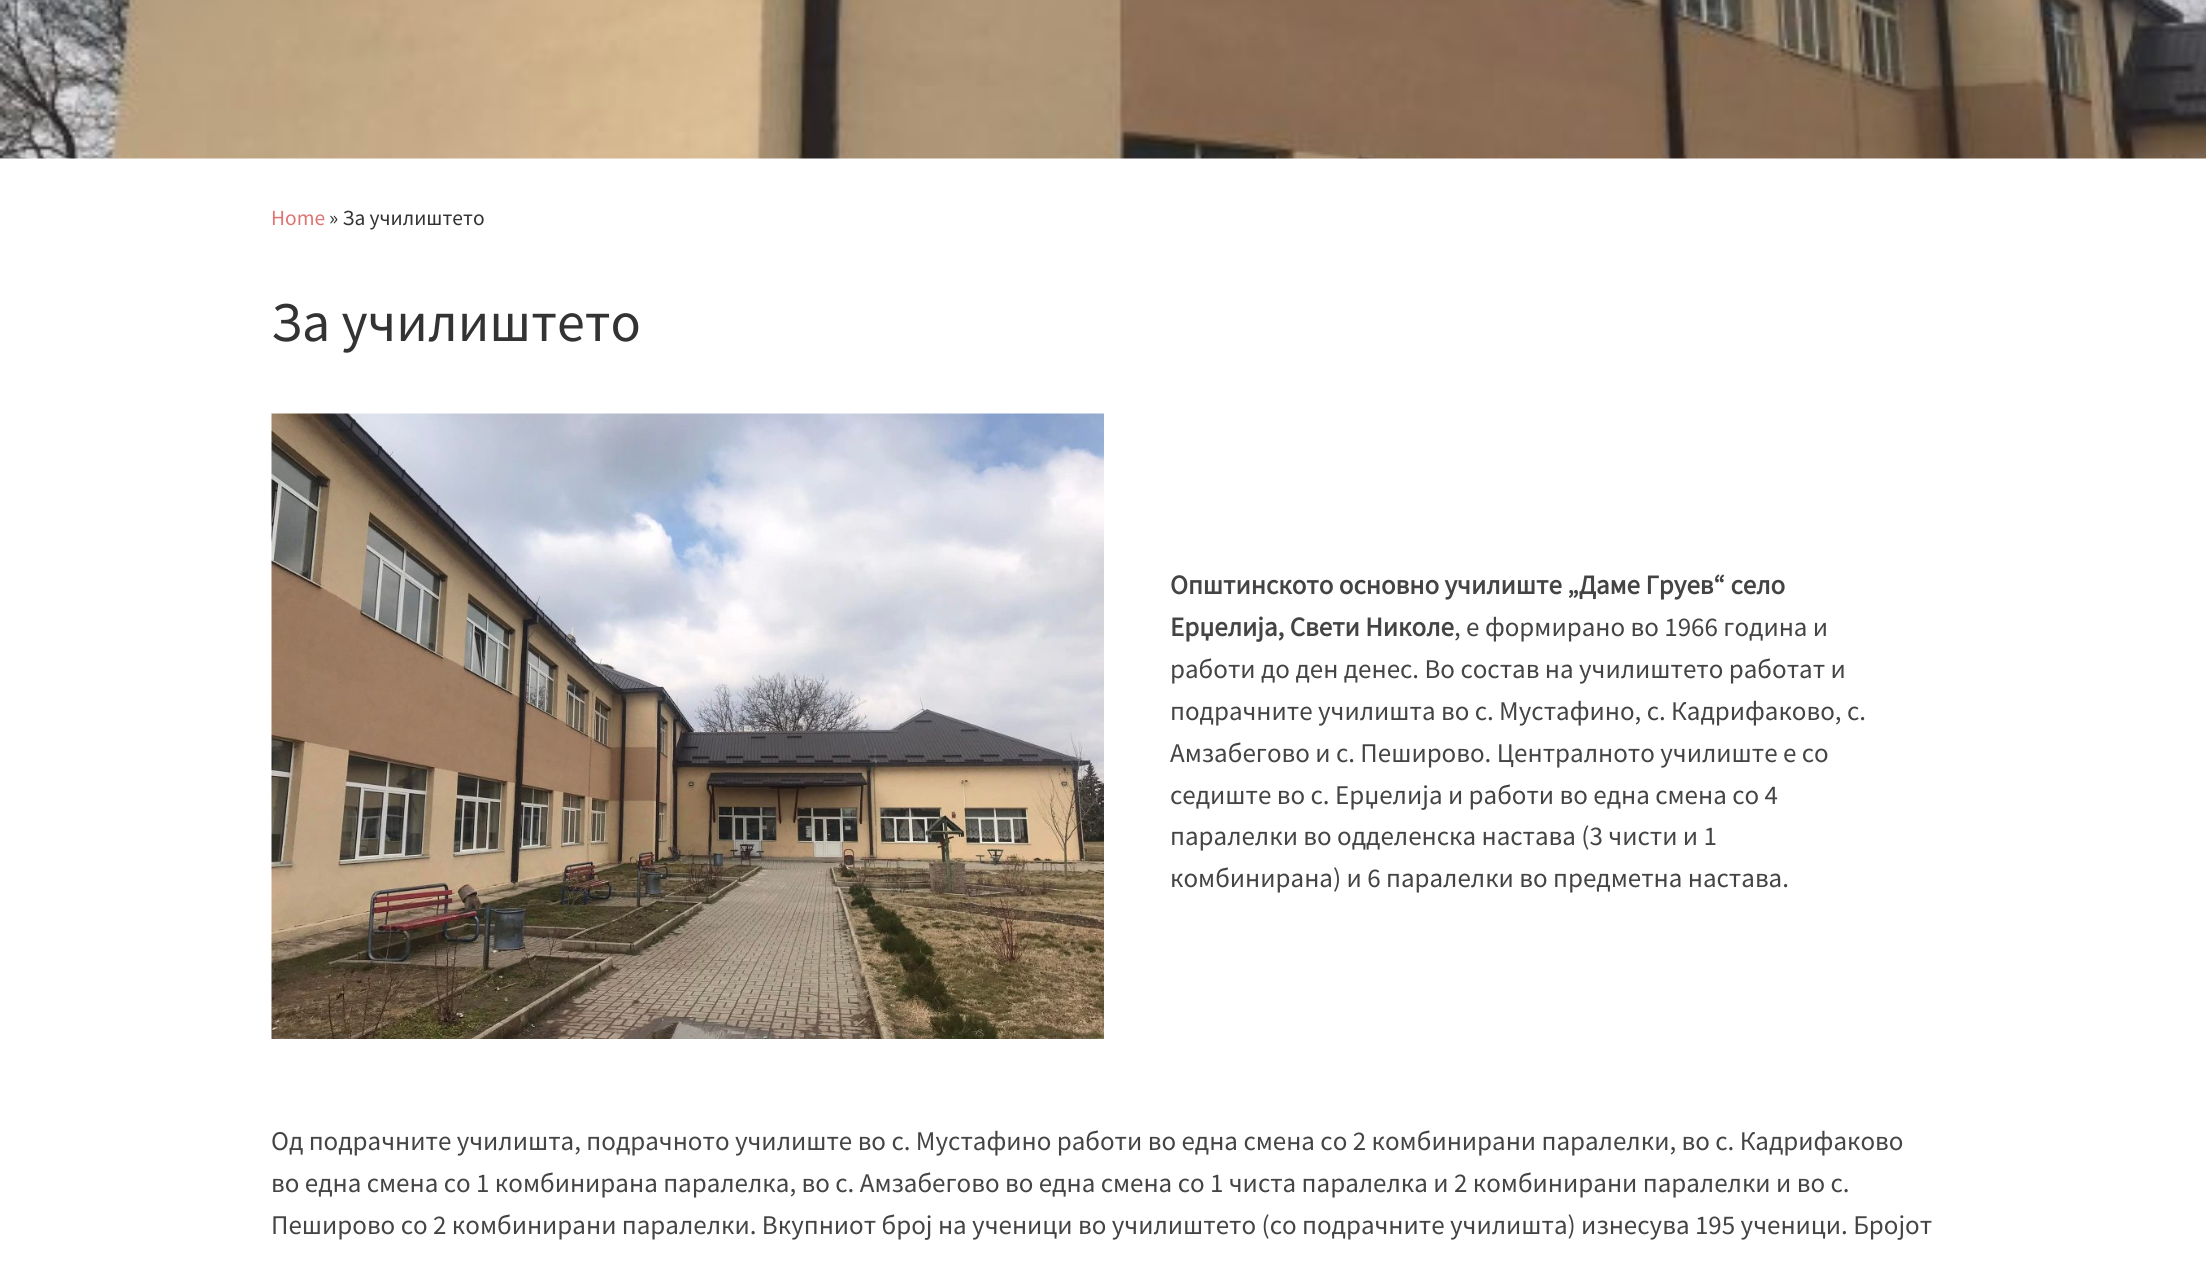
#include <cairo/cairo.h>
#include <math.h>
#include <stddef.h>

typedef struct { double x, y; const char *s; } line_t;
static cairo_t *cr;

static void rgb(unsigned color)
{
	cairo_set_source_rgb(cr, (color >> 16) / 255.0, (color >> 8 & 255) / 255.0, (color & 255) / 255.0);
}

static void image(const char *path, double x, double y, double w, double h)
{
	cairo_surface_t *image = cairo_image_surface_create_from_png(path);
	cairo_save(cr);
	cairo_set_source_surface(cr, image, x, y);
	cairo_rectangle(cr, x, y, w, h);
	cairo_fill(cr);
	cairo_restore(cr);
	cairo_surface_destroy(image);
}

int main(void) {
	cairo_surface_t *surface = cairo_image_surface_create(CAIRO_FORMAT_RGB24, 2206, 1266);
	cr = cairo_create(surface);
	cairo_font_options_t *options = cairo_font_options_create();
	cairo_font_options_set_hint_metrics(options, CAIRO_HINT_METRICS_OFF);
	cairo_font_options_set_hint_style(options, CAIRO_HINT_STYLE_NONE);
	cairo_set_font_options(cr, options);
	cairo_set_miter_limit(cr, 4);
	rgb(0xffffff);
	cairo_paint(cr);
	image("img/1.png", 0, 0, 2206, 159);
	image("img/2.png", 271, 413, 833, 626);
	cairo_select_font_face(cr, "Source Sans Pro", CAIRO_FONT_SLANT_NORMAL, CAIRO_FONT_WEIGHT_NORMAL);
	cairo_set_font_size(cr, 21.5);
	rgb(0xdd7575);
	cairo_move_to(cr, 271, 225);
	cairo_show_text(cr, "Home");
	rgb(0x333333);
	cairo_move_to(cr, 329, 225);
	cairo_show_text(cr, "» За училиштето");
	cairo_set_font_size(cr, 56);
	cairo_move_to(cr, 271, 341);
	cairo_show_text(cr, "За училиштето");
	cairo_select_font_face(cr, "Source Sans Pro", CAIRO_FONT_SLANT_NORMAL, CAIRO_FONT_WEIGHT_BOLD);
	cairo_set_font_size(cr, 27);
	rgb(0x444444);
	cairo_move_to(cr, 1170, 594);
	cairo_show_text(cr, "Општинското основно училиште „Даме Груев“ село");
	cairo_move_to(cr, 1170, 636);
	cairo_show_text(cr, "Ерџелија, Свети Николе");
	cairo_select_font_face(cr, "Source Sans Pro", CAIRO_FONT_SLANT_NORMAL, CAIRO_FONT_WEIGHT_NORMAL);
	{
		static const line_t items[] = {
			{1454, 636, ", е формирано во 1966 година и"},
			{1170, 678, "работи до ден денес. Во состав на училиштето работат и"},
			{1170, 720, "подрачните училишта во с. Мустафино, с. Кадрифаково, с."},
			{1170, 762, "Амзабегово и с. Пеширово. Централното училиште e со"},
			{1170, 804, "седиште во с. Ерџелија и работи во една смена со 4"},
			{1170, 845, "паралелки во одделенска настава (3 чисти и 1"},
			{1170, 887, "комбинирана) и 6 паралелки во предметна настава."},
			{271, 1150, "Од подрачните училишта, подрачното училиште во с. Мустафино работи во една смена со 2 комбинирани паралелки, во с. Кадрифаково"},
			{271, 1192, "во една смена со 1 комбинирана паралелка, во с. Амзабегово во една смена со 1 чиста паралелка и 2 комбинирани паралелки и во с."},
			{271, 1234, "Пеширово со 2 комбинирани паралелки. Вкупниот број на ученици во училиштето (со подрачните училишта) изнесува 195 ученици. Бројот"},
		};
		for (size_t i = 0; i < sizeof items / sizeof *items; i++) {
			cairo_move_to(cr, items[i].x, items[i].y);
			cairo_show_text(cr, items[i].s);
		}
	}
	cairo_surface_write_to_png(surface, "page.png");
	cairo_font_options_destroy(options);
	cairo_destroy(cr);
	cairo_surface_destroy(surface);
	return 0;
}
